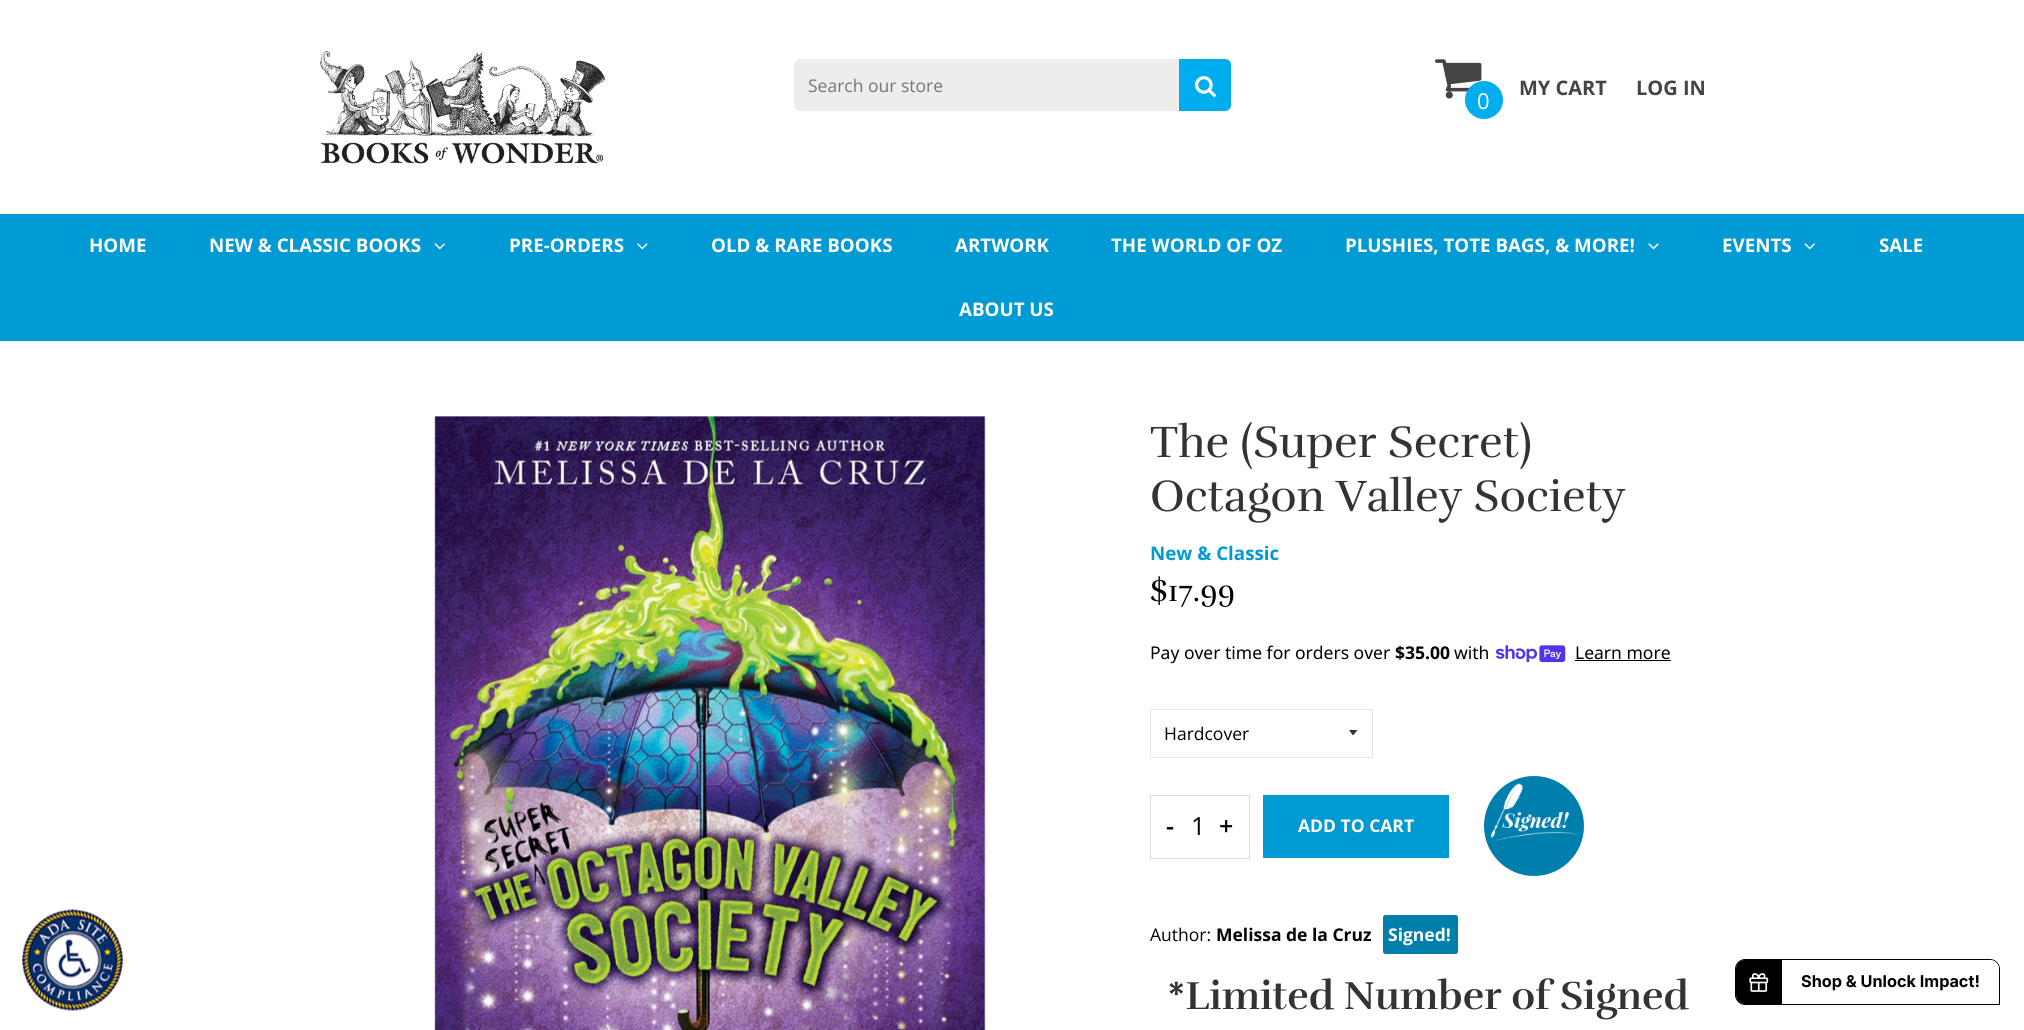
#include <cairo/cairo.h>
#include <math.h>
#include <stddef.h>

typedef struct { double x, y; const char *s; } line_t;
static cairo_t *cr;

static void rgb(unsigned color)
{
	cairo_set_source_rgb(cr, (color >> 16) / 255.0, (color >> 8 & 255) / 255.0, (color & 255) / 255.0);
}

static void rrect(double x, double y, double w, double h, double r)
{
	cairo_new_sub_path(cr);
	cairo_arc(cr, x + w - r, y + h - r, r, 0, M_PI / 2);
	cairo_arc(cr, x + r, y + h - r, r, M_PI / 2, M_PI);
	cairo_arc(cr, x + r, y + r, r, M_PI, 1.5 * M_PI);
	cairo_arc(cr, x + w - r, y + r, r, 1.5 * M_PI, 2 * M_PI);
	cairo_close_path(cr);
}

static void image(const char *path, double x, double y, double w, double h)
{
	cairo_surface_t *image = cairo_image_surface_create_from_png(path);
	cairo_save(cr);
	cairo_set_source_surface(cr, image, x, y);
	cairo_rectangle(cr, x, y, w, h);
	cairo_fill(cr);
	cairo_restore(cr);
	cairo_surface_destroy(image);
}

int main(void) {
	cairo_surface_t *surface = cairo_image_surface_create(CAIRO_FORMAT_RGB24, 2024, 1030);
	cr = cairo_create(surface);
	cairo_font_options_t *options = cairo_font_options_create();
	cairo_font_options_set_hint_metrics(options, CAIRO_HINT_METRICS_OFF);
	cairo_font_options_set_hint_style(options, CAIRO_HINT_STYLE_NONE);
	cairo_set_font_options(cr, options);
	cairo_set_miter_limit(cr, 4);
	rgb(0xffffff);
	cairo_paint(cr);
	image("img/1.png", 21, 909, 103, 102);
	image("img/2.png", 320, 51, 285, 113);
	rgb(0xededed);
	rrect(794.5, 59.5, 436, 51, 5.5);
	cairo_fill_preserve(cr);
	cairo_set_line_width(cr, 1);
	cairo_stroke(cr);
	rgb(0x00aeef);
	cairo_new_path(cr);
	cairo_move_to(cr, 1179, 59);
	cairo_line_to(cr, 1225, 59);
	cairo_curve_to(cr, 1228.5, 59, 1231, 61.5, 1231, 65);
	cairo_line_to(cr, 1231, 105);
	cairo_curve_to(cr, 1231, 108.5, 1228.5, 111, 1225, 111);
	cairo_line_to(cr, 1179, 111);
	cairo_close_path(cr);
	cairo_fill(cr);
	image("img/3.png", 1195, 76, 21, 21);
	image("img/4.png", 1435, 59, 47, 40);
	cairo_arc(cr, 1484, 100, 19, 0, 2 * M_PI);
	cairo_fill(cr);
	rgb(0x009bd5);
	cairo_rectangle(cr, 0, 214, 2024, 127);
	cairo_fill(cr);
	image("img/5.png", 434, 243, 11, 7);
	image("img/6.png", 637, 243, 11, 7);
	image("img/7.png", 1648, 243, 11, 7);
	image("img/5.png", 1804, 243, 11, 7);
	image("img/8.png", 434, 416, 552, 614);
	image("img/9.png", 1496, 645, 70, 18);
	rgb(0x000000);
	cairo_rectangle(cr, 1575, 660, 96, 1);
	cairo_fill(cr);
	rgb(0x333333);
	cairo_new_path(cr);
	cairo_move_to(cr, 1349, 730);
	cairo_line_to(cr, 1353, 735.5);
	cairo_line_to(cr, 1357.5, 730);
	cairo_close_path(cr);
	cairo_fill(cr);
	cairo_rectangle(cr, 1150.5, 709.5, 222, 48);
	rgb(0xe5e5e5);
	cairo_stroke(cr);
	cairo_rectangle(cr, 1150.5, 795.5, 99, 63);
	rgb(0xdddddd);
	cairo_stroke(cr);
	rgb(0x009bd5);
	cairo_rectangle(cr, 1263, 795, 186, 63);
	cairo_fill(cr);
	rgb(0x007fad);
	cairo_arc(cr, 1534, 826, 50, 0, 2 * M_PI);
	cairo_fill(cr);
	image("img/10.png", 1491, 783, 86, 59);
	rrect(1383, 915, 75, 39, 2.5);
	cairo_fill(cr);
	cairo_new_path(cr);
	cairo_move_to(cr, 1745, 959.5);
	cairo_line_to(cr, 1990, 959.5);
	cairo_curve_to(cr, 1995, 959.5, 1999.5, 964, 1999.5, 969);
	cairo_line_to(cr, 1999.5, 1004.5);
	cairo_line_to(cr, 1745, 1004.5);
	cairo_curve_to(cr, 1740, 1004.5, 1735.5, 1000, 1735.5, 995);
	cairo_line_to(cr, 1735.5, 969);
	cairo_curve_to(cr, 1735.5, 964, 1740, 959.5, 1745, 959.5);
	cairo_close_path(cr);
	rgb(0x000000);
	cairo_stroke(cr);
	cairo_new_path(cr);
	cairo_move_to(cr, 1745, 960);
	cairo_line_to(cr, 1781, 960);
	cairo_line_to(cr, 1781, 1004);
	cairo_line_to(cr, 1745, 1004);
	cairo_curve_to(cr, 1740, 1004, 1736, 1000, 1736, 995);
	cairo_line_to(cr, 1736, 969);
	cairo_curve_to(cr, 1736, 964, 1740, 960, 1745, 960);
	cairo_close_path(cr);
	cairo_fill(cr);
	image("img/11.png", 1749, 973, 20, 19);
	rgb(0xffffff);
	cairo_new_path(cr);
	cairo_move_to(cr, 1781, 960);
	cairo_line_to(cr, 1990, 960);
	cairo_curve_to(cr, 1995, 960, 1999, 964, 1999, 969);
	cairo_line_to(cr, 1999, 995);
	cairo_curve_to(cr, 1999, 1000, 1995, 1004, 1990, 1004);
	cairo_line_to(cr, 1781, 1004);
	cairo_close_path(cr);
	cairo_fill(cr);
	rgb(0x000000);
	cairo_rectangle(cr, 1781, 960, 1, 44);
	cairo_fill(cr);
	cairo_select_font_face(cr, "Open Sans", CAIRO_FONT_SLANT_NORMAL, CAIRO_FONT_WEIGHT_NORMAL);
	cairo_set_font_size(cr, 17.5);
	rgb(0x757575);
	cairo_move_to(cr, 808, 92);
	cairo_show_text(cr, "Search our store");
	cairo_select_font_face(cr, "Open Sans", CAIRO_FONT_SLANT_NORMAL, CAIRO_FONT_WEIGHT_BOLD);
	cairo_set_font_size(cr, 20);
	rgb(0x444444);
	cairo_move_to(cr, 1519, 95);
	cairo_show_text(cr, "MY CART");
	cairo_move_to(cr, 1636, 95);
	cairo_show_text(cr, "LOG IN");
	cairo_select_font_face(cr, "Open Sans", CAIRO_FONT_SLANT_NORMAL, CAIRO_FONT_WEIGHT_NORMAL);
	cairo_set_font_size(cr, 22);
	rgb(0xffffff);
	cairo_move_to(cr, 1477, 109);
	cairo_show_text(cr, "0");
	cairo_select_font_face(cr, "Open Sans", CAIRO_FONT_SLANT_NORMAL, CAIRO_FONT_WEIGHT_BOLD);
	cairo_set_font_size(cr, 18.75);
	{
		static const line_t items[] = {
			{89, 252, "HOME"},
			{209, 252, "NEW & CLASSIC BOOKS"},
			{509, 252, "PRE-ORDERS"},
			{711, 252, "OLD & RARE BOOKS"},
			{955, 252, "ARTWORK"},
			{1111, 252, "THE WORLD OF OZ"},
			{1345, 252, "PLUSHIES, TOTE BAGS, & MORE!"},
			{1722, 252, "EVENTS"},
			{1879, 252, "SALE"},
			{959, 316, "ABOUT US"},
		};
		for (size_t i = 0; i < sizeof items / sizeof *items; i++) {
			cairo_move_to(cr, items[i].x, items[i].y);
			cairo_show_text(cr, items[i].s);
		}
	}
	cairo_select_font_face(cr, "Rufina", CAIRO_FONT_SLANT_NORMAL, CAIRO_FONT_WEIGHT_NORMAL);
	cairo_set_font_size(cr, 45);
	rgb(0x333333);
	cairo_move_to(cr, 1150, 457);
	cairo_show_text(cr, "The (Super Secret)");
	cairo_move_to(cr, 1150, 511);
	cairo_show_text(cr, "Octagon Valley Society");
	cairo_select_font_face(cr, "Open Sans", CAIRO_FONT_SLANT_NORMAL, CAIRO_FONT_WEIGHT_BOLD);
	cairo_set_font_size(cr, 18.75);
	rgb(0x009bd5);
	cairo_move_to(cr, 1150, 560);
	cairo_show_text(cr, "New & Classic");
	cairo_select_font_face(cr, "Rufina", CAIRO_FONT_SLANT_NORMAL, CAIRO_FONT_WEIGHT_NORMAL);
	cairo_set_font_size(cr, 31);
	rgb(0x000000);
	cairo_move_to(cr, 1150, 601);
	cairo_show_text(cr, "$17.99");
	cairo_select_font_face(cr, "Noto Sans", CAIRO_FONT_SLANT_NORMAL, CAIRO_FONT_WEIGHT_NORMAL);
	cairo_set_font_size(cr, 17.5);
	cairo_move_to(cr, 1150, 659);
	cairo_show_text(cr, "Pay over time for orders over");
	cairo_select_font_face(cr, "Noto Sans", CAIRO_FONT_SLANT_NORMAL, CAIRO_FONT_WEIGHT_BOLD);
	cairo_move_to(cr, 1395, 659);
	cairo_show_text(cr, "$35.00");
	cairo_select_font_face(cr, "Noto Sans", CAIRO_FONT_SLANT_NORMAL, CAIRO_FONT_WEIGHT_NORMAL);
	cairo_move_to(cr, 1454, 659);
	cairo_show_text(cr, "with");
	cairo_move_to(cr, 1575, 659);
	cairo_show_text(cr, "Learn more");
	cairo_select_font_face(cr, "Open Sans", CAIRO_FONT_SLANT_NORMAL, CAIRO_FONT_WEIGHT_NORMAL);
	cairo_move_to(cr, 1164, 740);
	cairo_show_text(cr, "Hardcover");
	cairo_select_font_face(cr, "Open Sans SemiBold", CAIRO_FONT_SLANT_NORMAL, CAIRO_FONT_WEIGHT_NORMAL);
	cairo_set_font_size(cr, 25);
	cairo_move_to(cr, 1166, 835);
	cairo_show_text(cr, "-");
	cairo_select_font_face(cr, "Open Sans", CAIRO_FONT_SLANT_NORMAL, CAIRO_FONT_WEIGHT_NORMAL);
	cairo_move_to(cr, 1191, 835);
	cairo_show_text(cr, "1");
	cairo_select_font_face(cr, "Open Sans SemiBold", CAIRO_FONT_SLANT_NORMAL, CAIRO_FONT_WEIGHT_NORMAL);
	cairo_move_to(cr, 1219, 835);
	cairo_show_text(cr, "+");
	cairo_select_font_face(cr, "Open Sans", CAIRO_FONT_SLANT_NORMAL, CAIRO_FONT_WEIGHT_BOLD);
	cairo_set_font_size(cr, 17.5);
	rgb(0xffffff);
	cairo_move_to(cr, 1298, 832);
	cairo_show_text(cr, "ADD TO CART");
	cairo_select_font_face(cr, "Open Sans", CAIRO_FONT_SLANT_NORMAL, CAIRO_FONT_WEIGHT_NORMAL);
	rgb(0x000000);
	cairo_move_to(cr, 1150, 941);
	cairo_show_text(cr, "Author:");
	cairo_select_font_face(cr, "Open Sans", CAIRO_FONT_SLANT_NORMAL, CAIRO_FONT_WEIGHT_BOLD);
	cairo_move_to(cr, 1216, 941);
	cairo_show_text(cr, "Melissa de la Cruz");
	rgb(0xffffff);
	cairo_move_to(cr, 1388, 941);
	cairo_show_text(cr, "Signed!");
	cairo_select_font_face(cr, "Rufina", CAIRO_FONT_SLANT_NORMAL, CAIRO_FONT_WEIGHT_BOLD);
	cairo_set_font_size(cr, 40);
	rgb(0x333333);
	cairo_move_to(cr, 1167, 1009);
	cairo_show_text(cr, "*Limited Number of Signed");
	cairo_select_font_face(cr, "Inter", CAIRO_FONT_SLANT_NORMAL, CAIRO_FONT_WEIGHT_BOLD);
	cairo_set_font_size(cr, 16.25);
	rgb(0x000000);
	cairo_move_to(cr, 1801, 987);
	cairo_show_text(cr, "Shop & Unlock Impact!");
	cairo_surface_write_to_png(surface, "page.png");
	cairo_font_options_destroy(options);
	cairo_destroy(cr);
	cairo_surface_destroy(surface);
	return 0;
}
